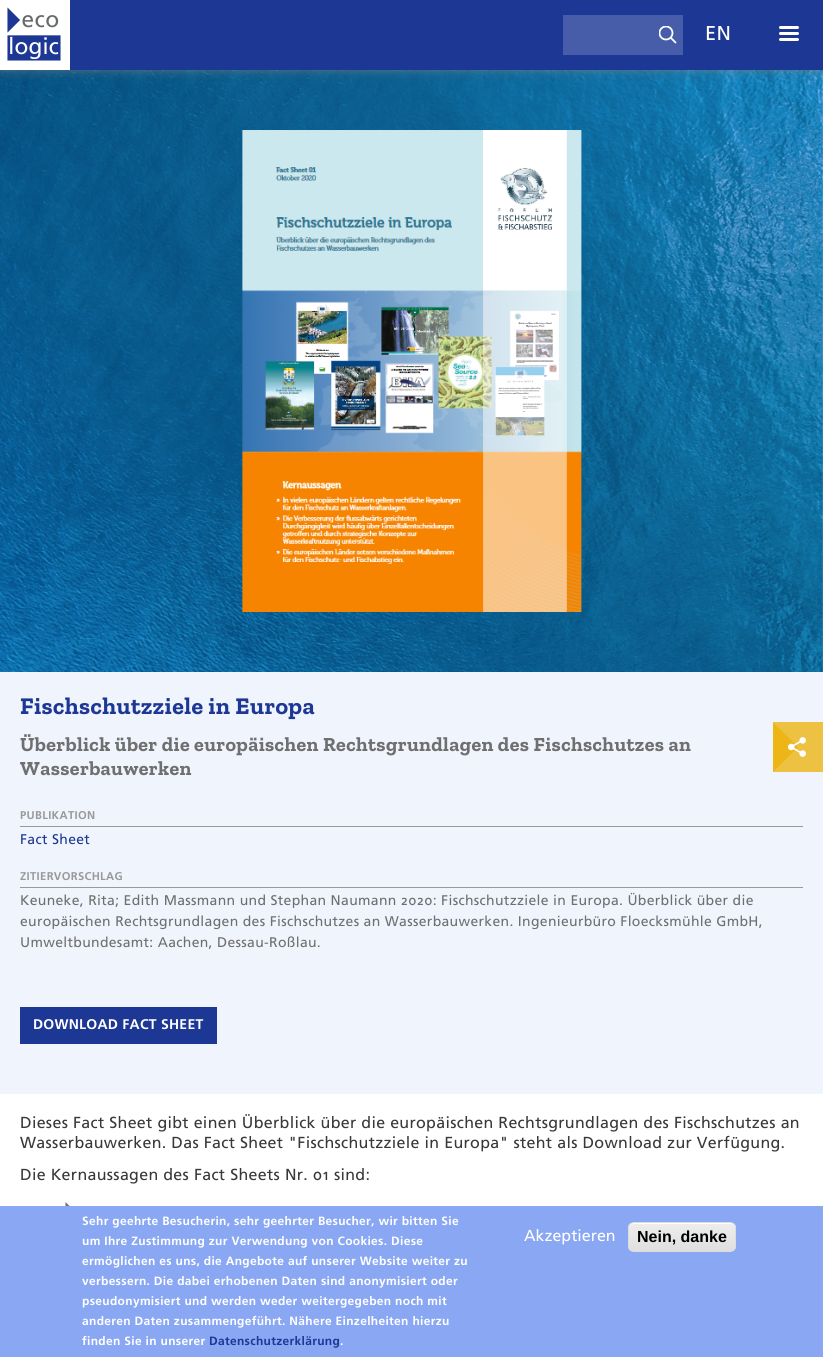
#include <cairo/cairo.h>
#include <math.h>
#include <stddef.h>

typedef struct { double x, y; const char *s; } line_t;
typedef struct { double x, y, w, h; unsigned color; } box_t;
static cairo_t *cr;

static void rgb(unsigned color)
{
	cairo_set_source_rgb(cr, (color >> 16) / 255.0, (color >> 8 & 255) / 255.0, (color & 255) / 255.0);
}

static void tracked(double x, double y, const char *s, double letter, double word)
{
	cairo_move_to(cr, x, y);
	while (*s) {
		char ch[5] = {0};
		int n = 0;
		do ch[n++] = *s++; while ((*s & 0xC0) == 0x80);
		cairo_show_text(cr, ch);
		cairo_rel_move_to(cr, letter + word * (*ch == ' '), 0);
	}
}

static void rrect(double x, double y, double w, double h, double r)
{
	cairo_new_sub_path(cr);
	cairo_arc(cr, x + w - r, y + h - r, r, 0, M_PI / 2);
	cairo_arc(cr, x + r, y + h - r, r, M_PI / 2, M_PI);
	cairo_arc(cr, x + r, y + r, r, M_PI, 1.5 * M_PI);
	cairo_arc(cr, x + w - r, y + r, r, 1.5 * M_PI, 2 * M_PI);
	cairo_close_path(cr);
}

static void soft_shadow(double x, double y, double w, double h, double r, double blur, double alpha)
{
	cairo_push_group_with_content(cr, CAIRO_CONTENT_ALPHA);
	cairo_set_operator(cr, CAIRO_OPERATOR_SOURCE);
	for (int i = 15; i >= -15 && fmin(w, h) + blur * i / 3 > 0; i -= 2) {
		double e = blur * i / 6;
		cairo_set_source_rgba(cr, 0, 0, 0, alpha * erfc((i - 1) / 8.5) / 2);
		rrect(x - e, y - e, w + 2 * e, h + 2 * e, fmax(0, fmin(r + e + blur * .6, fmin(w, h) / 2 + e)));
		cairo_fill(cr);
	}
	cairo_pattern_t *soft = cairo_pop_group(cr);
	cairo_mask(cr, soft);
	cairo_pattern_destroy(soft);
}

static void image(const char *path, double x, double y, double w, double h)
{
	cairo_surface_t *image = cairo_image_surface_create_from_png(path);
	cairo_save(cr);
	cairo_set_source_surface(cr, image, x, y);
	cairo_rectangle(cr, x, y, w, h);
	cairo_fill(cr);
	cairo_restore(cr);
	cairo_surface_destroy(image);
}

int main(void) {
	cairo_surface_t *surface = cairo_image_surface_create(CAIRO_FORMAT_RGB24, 823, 1357);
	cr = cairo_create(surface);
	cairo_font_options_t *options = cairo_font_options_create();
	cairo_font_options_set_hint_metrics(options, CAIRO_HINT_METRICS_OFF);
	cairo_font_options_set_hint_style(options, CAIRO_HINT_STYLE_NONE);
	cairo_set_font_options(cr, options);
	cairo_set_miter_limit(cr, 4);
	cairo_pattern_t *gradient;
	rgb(0xffffff);
	cairo_paint(cr);
	rgb(0xeff4fd);
	cairo_rectangle(cr, 0, 70, 823, 1024);
	cairo_fill(cr);
	image("img/2.png", 0, 70, 823, 602);
	rgb(0x838282);
	soft_shadow(0, 0, 823, 70, 0, 5, 0.66);
	rgb(0x1d3794);
	cairo_rectangle(cr, 70, 0, 753, 70);
	cairo_fill(cr);
	rgb(0xffffff);
	cairo_rectangle(cr, 0, 0, 70, 70);
	cairo_fill(cr);
	image("img/1.png", 7, 7, 54, 54);
	rgb(0x475da9);
	cairo_rectangle(cr, 563, 15, 120, 40);
	cairo_fill(cr);
	cairo_save(cr);
	cairo_rectangle(cr, 659, 26, 18, 18);
	cairo_clip(cr);
	cairo_arc(cr, 666, 33, 6.5, 0, 2 * M_PI);
	rgb(0xffffff);
	cairo_set_line_width(cr, 1.8);
	cairo_stroke(cr);
	cairo_restore(cr);
	cairo_new_path(cr);
	cairo_move_to(cr, 671, 38);
	cairo_line_to(cr, 675.5, 42.5);
	rgb(0xffffff);
	cairo_set_line_width(cr, 1.8);
	cairo_set_line_cap(cr, CAIRO_LINE_CAP_ROUND);
	cairo_stroke(cr);
	rrect(779, 26, 20, 3, 1.5);
	cairo_fill(cr);
	rrect(779, 32, 20, 3, 1.5);
	cairo_fill(cr);
	rrect(779, 38, 20, 3, 1.5);
	cairo_fill(cr);
	image("img/3.png", 242, 130, 340, 482);
	image("img/4.png", 773, 722, 50, 50);
	{
		static const box_t items[] = {
			{20, 826, 783, 1, 0x999999},
			{20, 887, 783, 1, 0x999999},
			{20, 1007, 197, 37, 0x1d3794},
		};
		for (size_t i = 0; i < sizeof items / sizeof *items; i++) {
			rgb(items[i].color);
			cairo_rectangle(cr, items[i].x, items[i].y, items[i].w, items[i].h);
			cairo_fill(cr);
		}
	}
	rgb(0x6f6f6f);
	cairo_new_path(cr);
	cairo_move_to(cr, 70.5, 1207);
	cairo_line_to(cr, 65.5, 1212);
	cairo_line_to(cr, 65.5, 1202);
	cairo_close_path(cr);
	cairo_fill(cr);
	rgb(0x89a7f3);
	cairo_rectangle(cr, 0, 1206, 823, 151);
	cairo_fill(cr);
	cairo_save(cr);
	rrect(628, 1222, 108, 30, 6);
	cairo_clip(cr);
	gradient = cairo_pattern_create_linear(682, 1223, 682, 1251);
	cairo_pattern_add_color_stop_rgba(gradient, 0.05, 0.929, 0.929, 0.929, 1);
	cairo_pattern_add_color_stop_rgba(gradient, 1, 0.875, 0.875, 0.875, 1);
	cairo_set_source(cr, gradient);
	cairo_pattern_destroy(gradient);
	cairo_rectangle(cr, 628, 1223, 108, 28);
	cairo_fill(cr);
	cairo_restore(cr);
	rgb(0xffffff);
	cairo_new_path(cr);
	cairo_move_to(cr, 634, 1224);
	cairo_line_to(cr, 730, 1224);
	cairo_curve_to(cr, 733, 1224, 735, 1226, 735, 1229);
	cairo_curve_to(cr, 735, 1219, 719, 1223, 714, 1223);
	cairo_line_to(cr, 650, 1223);
	cairo_curve_to(cr, 645, 1223, 629, 1219, 629, 1229);
	cairo_curve_to(cr, 629, 1226, 631, 1224, 634, 1224);
	cairo_close_path(cr);
	cairo_fill(cr);
	rrect(628.5, 1222.5, 107, 29, 5.5);
	rgb(0xdcdcdc);
	cairo_set_line_width(cr, 1);
	cairo_set_line_cap(cr, CAIRO_LINE_CAP_BUTT);
	cairo_stroke(cr);
	cairo_select_font_face(cr, "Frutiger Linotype", CAIRO_FONT_SLANT_NORMAL, CAIRO_FONT_WEIGHT_NORMAL);
	cairo_set_font_size(cr, 20);
	rgb(0xffffff);
	tracked(705, 40, "EN", 0.32, 0);
	cairo_select_font_face(cr, "Zilla Slab", CAIRO_FONT_SLANT_NORMAL, CAIRO_FONT_WEIGHT_BOLD);
	cairo_set_font_size(cr, 24);
	rgb(0x1d3794);
	tracked(20, 714, "Fischschutzziele in Europa", 0.4, 0);
	cairo_set_font_size(cr, 20);
	rgb(0x6f6f6f);
	tracked(20, 751, "Überblick über die europäischen Rechtsgrundlagen des Fischschutzes an", 0.4, 0);
	tracked(20, 775, "Wasserbauwerken", 0.4, 0);
	cairo_select_font_face(cr, "Frutiger Linotype", CAIRO_FONT_SLANT_NORMAL, CAIRO_FONT_WEIGHT_BOLD);
	cairo_set_font_size(cr, 11.25);
	rgb(0x999999);
	tracked(20, 819, "PUBLIKATION", 0.32, 0);
	cairo_select_font_face(cr, "Frutiger Linotype", CAIRO_FONT_SLANT_NORMAL, CAIRO_FONT_WEIGHT_NORMAL);
	cairo_set_font_size(cr, 14);
	rgb(0x1d3794);
	tracked(20, 844, "Fact Sheet", 0.32, 0);
	cairo_select_font_face(cr, "Frutiger Linotype", CAIRO_FONT_SLANT_NORMAL, CAIRO_FONT_WEIGHT_BOLD);
	cairo_set_font_size(cr, 11.25);
	rgb(0x999999);
	tracked(20, 880, "ZITIERVORSCHLAG", 0.32, 0);
	cairo_select_font_face(cr, "Frutiger Linotype", CAIRO_FONT_SLANT_NORMAL, CAIRO_FONT_WEIGHT_NORMAL);
	cairo_set_font_size(cr, 14);
	rgb(0x6f6f6f);
	{
		static const line_t items[] = {
			{20, 905, "Keuneke, Rita; Edith Massmann und Stephan Naumann 2020: Fischschutzziele in Europa. Überblick über die"},
			{20, 926, "europäischen Rechtsgrundlagen des Fischschutzes an Wasserbauwerken. Ingenieurbüro Floecksmühle GmbH,"},
			{20, 947, "Umweltbundesamt: Aachen, Dessau-Roßlau."},
		};
		for (size_t i = 0; i < sizeof items / sizeof *items; i++) {
			tracked(items[i].x, items[i].y, items[i].s, 0.32, 0);
		}
	}
	cairo_select_font_face(cr, "Frutiger Linotype", CAIRO_FONT_SLANT_NORMAL, CAIRO_FONT_WEIGHT_BOLD);
	rgb(0xffffff);
	tracked(33, 1029, "DOWNLOAD FACT SHEET", 0.25, 0);
	cairo_select_font_face(cr, "Frutiger Linotype", CAIRO_FONT_SLANT_NORMAL, CAIRO_FONT_WEIGHT_NORMAL);
	cairo_set_font_size(cr, 16);
	rgb(0x393939);
	{
		static const line_t items[] = {
			{20, 1128, "Dieses Fact Sheet gibt einen Überblick über die europäischen Rechtsgrundlagen des Fischschutzes an"},
			{20, 1148, "Wasserbauwerken. Das Fact Sheet \"Fischschutzziele in Europa\" steht als Download zur Verfügung."},
			{20, 1180, "Die Kernaussagen des Fact Sheets Nr. 01 sind:"},
		};
		for (size_t i = 0; i < sizeof items / sizeof *items; i++) {
			tracked(items[i].x, items[i].y, items[i].s, 0.32, 0);
		}
	}
	cairo_select_font_face(cr, "Frutiger Linotype", CAIRO_FONT_SLANT_NORMAL, CAIRO_FONT_WEIGHT_BOLD);
	cairo_set_font_size(cr, 12);
	rgb(0xffffff);
	{
		static const line_t items[] = {
			{82, 1225, "Sehr geehrte Besucherin, sehr geehrter Besucher, wir bitten Sie"},
			{82, 1245, "um Ihre Zustimmung zur Verwendung von Cookies. Diese"},
			{82, 1265, "ermöglichen es uns, die Angebote auf unserer Website weiter zu"},
			{82, 1285, "verbessern. Die dabei erhobenen Daten sind anonymisiert oder"},
			{82, 1305, "pseudonymisiert und werden weder weitergegeben noch mit"},
			{82, 1325, "anderen Daten zusammengeführt. Nähere Einzelheiten hierzu"},
			{82, 1345, "finden Sie in unserer"},
		};
		for (size_t i = 0; i < sizeof items / sizeof *items; i++) {
			tracked(items[i].x, items[i].y, items[i].s, 0.32, 0);
		}
	}
	rgb(0x1d3794);
	tracked(209, 1345, "Datenschutzerklärung", 0.32, 0);
	rgb(0xffffff);
	tracked(340, 1345, ".", 0.32, 0);
	cairo_select_font_face(cr, "Frutiger Linotype", CAIRO_FONT_SLANT_NORMAL, CAIRO_FONT_WEIGHT_NORMAL);
	cairo_set_font_size(cr, 16);
	cairo_move_to(cr, 524, 1241);
	cairo_show_text(cr, "Akzeptieren");
	cairo_select_font_face(cr, "Liberation Sans", CAIRO_FONT_SLANT_NORMAL, CAIRO_FONT_WEIGHT_BOLD);
	rgb(0x000000);
	cairo_move_to(cr, 637, 1242);
	cairo_show_text(cr, "Nein, danke");
	cairo_surface_write_to_png(surface, "page.png");
	cairo_font_options_destroy(options);
	cairo_destroy(cr);
	cairo_surface_destroy(surface);
	return 0;
}
